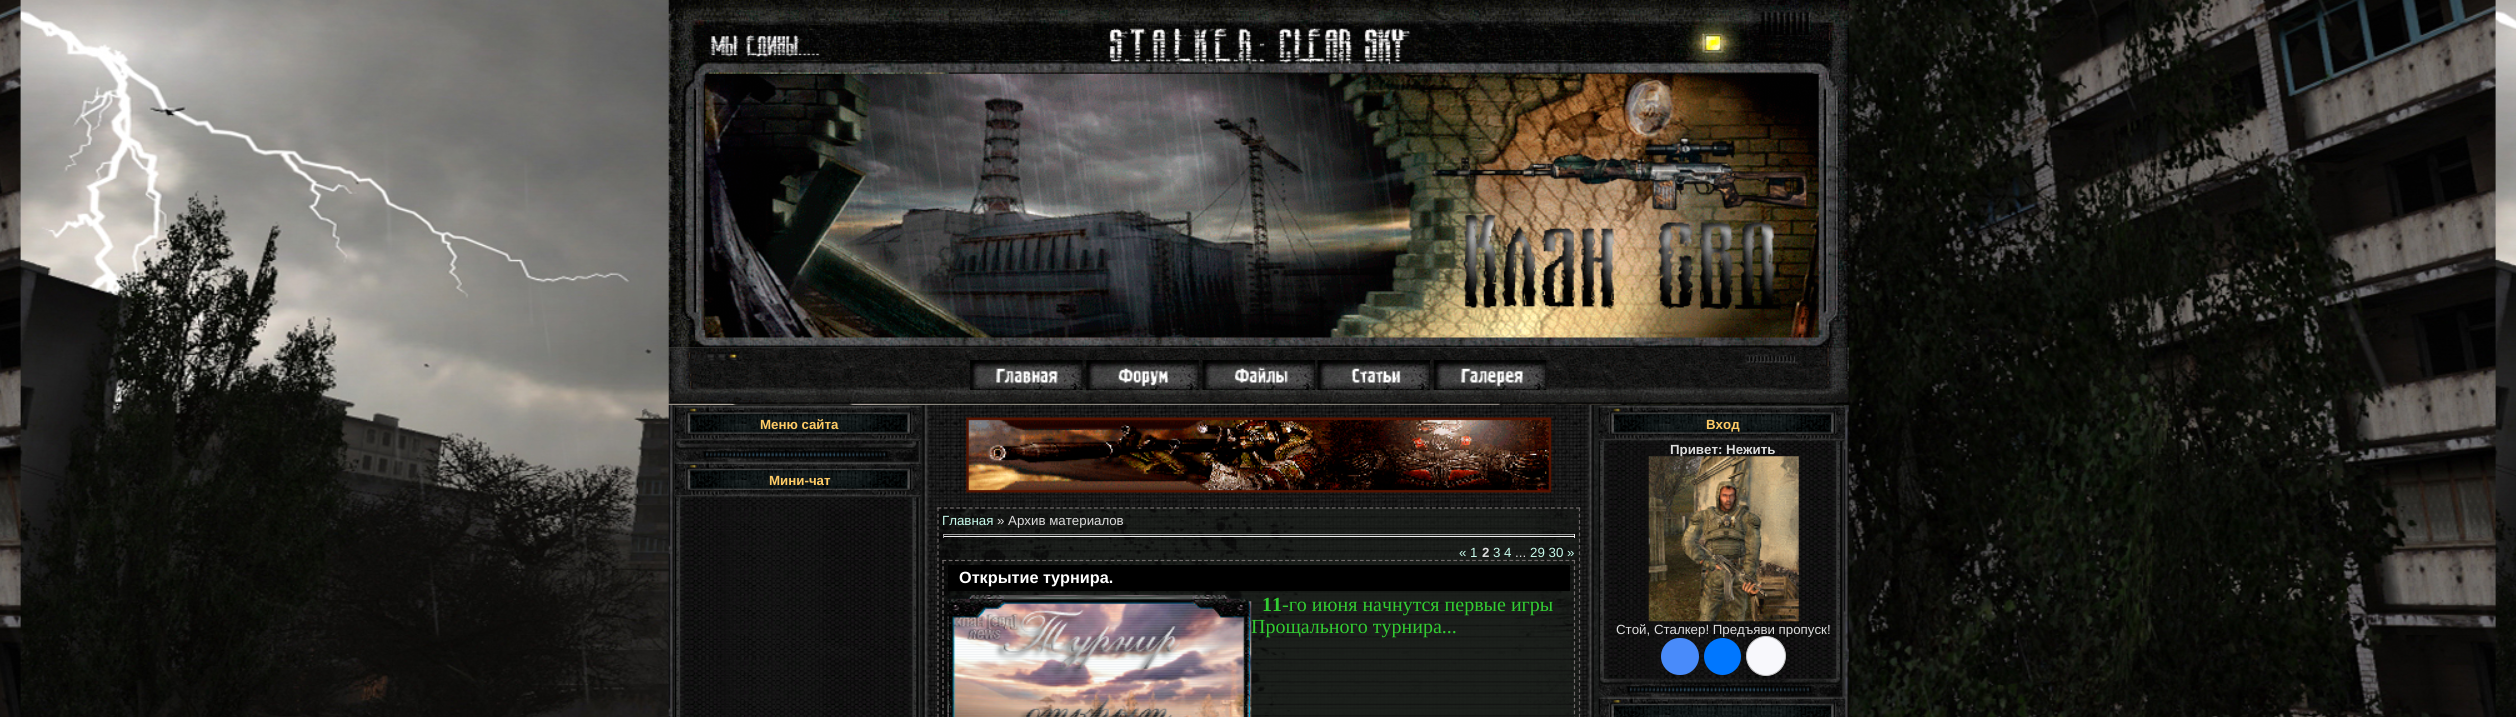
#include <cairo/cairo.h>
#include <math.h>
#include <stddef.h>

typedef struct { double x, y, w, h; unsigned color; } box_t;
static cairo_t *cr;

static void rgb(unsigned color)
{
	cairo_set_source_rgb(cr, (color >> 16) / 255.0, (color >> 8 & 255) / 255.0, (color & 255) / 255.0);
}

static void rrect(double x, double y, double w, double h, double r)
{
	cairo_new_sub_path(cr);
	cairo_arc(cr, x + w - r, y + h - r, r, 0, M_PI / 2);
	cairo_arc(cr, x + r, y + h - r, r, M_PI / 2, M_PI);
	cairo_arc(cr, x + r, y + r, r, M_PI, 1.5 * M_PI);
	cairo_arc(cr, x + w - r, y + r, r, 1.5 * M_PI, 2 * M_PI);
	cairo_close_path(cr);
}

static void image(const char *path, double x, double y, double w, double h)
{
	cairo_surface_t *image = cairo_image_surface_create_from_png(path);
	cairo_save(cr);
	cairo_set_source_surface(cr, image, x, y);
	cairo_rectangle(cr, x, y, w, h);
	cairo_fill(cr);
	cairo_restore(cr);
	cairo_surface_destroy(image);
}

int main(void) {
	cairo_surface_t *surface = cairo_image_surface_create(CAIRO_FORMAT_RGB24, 2516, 717);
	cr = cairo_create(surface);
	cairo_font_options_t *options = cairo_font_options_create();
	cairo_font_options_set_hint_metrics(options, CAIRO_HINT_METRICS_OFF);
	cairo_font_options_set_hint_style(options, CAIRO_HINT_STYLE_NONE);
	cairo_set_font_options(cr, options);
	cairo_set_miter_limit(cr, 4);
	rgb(0xffffff);
	cairo_paint(cr);
	image("img/1.png", 0, 0, 2516, 717);
	image("img/2.png", 668, 0, 1181, 348);
	image("img/3.png", 668, 347, 1181, 57);
	image("img/4.png", 970, 360, 113, 30);
	image("img/5.png", 1086, 360, 113, 30);
	image("img/6.png", 1202, 360, 113, 30);
	image("img/7.png", 1317, 360, 113, 30);
	image("img/8.png", 1433, 360, 114, 30);
	image("img/9.png", 668, 405, 1181, 312);
	image("img/10.png", 675, 406, 247, 36);
	image("img/11.png", 675, 441, 246, 22);
	image("img/12.png", 675, 462, 247, 36);
	image("img/13.png", 675, 497, 245, 220);
	image("img/14.png", 966, 417, 586, 76);
	image("img/15.png", 937, 507, 643, 210);
	cairo_new_path(cr);
	cairo_move_to(cr, 937.5, 508);
	cairo_line_to(cr, 1580, 508);
	rgb(0x706a6a);
	cairo_set_line_width(cr, 1.2);
	cairo_set_dash(cr, (double[]){3.75, 2.51}, 2, 0);
	cairo_stroke(cr);
	cairo_new_path(cr);
	cairo_move_to(cr, 1579.5, 507.5);
	cairo_line_to(cr, 1579.5, 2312.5);
	cairo_set_dash(cr, (double[]){3.75, 2.5}, 2, 0);
	cairo_stroke(cr);
	cairo_new_path(cr);
	cairo_move_to(cr, 938, 507.5);
	cairo_line_to(cr, 938, 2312.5);
	cairo_stroke(cr);
	{
		static const box_t items[] = {
			{943, 534, 632, 1, 0x9f9f9f},
			{1574, 534, 1, 4, 0xeeeeee},
			{943, 536, 632, 1, 0xeeeeee},
			{943, 534, 1, 4, 0x9f9f9f},
		};
		for (size_t i = 0; i < sizeof items / sizeof *items; i++) {
			rgb(items[i].color);
			cairo_rectangle(cr, items[i].x, items[i].y, items[i].w, items[i].h);
			cairo_fill(cr);
		}
	}
	image("img/16.png", 942, 560, 633, 157);
	cairo_new_path(cr);
	cairo_move_to(cr, 942.5, 560.5);
	cairo_line_to(cr, 1575, 560.5);
	rgb(0x706a6a);
	cairo_set_dash(cr, (double[]){3.75, 2.48}, 2, 0);
	cairo_stroke(cr);
	cairo_new_path(cr);
	cairo_move_to(cr, 1574.5, 560);
	cairo_line_to(cr, 1574.5, 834);
	cairo_set_dash(cr, (double[]){3.75, 2.52}, 2, 0);
	cairo_stroke(cr);
	cairo_new_path(cr);
	cairo_move_to(cr, 943, 560);
	cairo_line_to(cr, 943, 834);
	cairo_stroke(cr);
	rgb(0x000000);
	cairo_rectangle(cr, 948, 565, 622, 26);
	cairo_fill(cr);
	image("img/17.png", 947, 594, 305, 123);
	image("img/18.png", 1598, 406, 247, 36);
	image("img/19.png", 1598, 441, 246, 236);
	rgb(0x498bfa);
	rrect(1661, 638, 38, 37, 18.5);
	cairo_fill(cr);
	rgb(0x0077ff);
	cairo_arc(cr, 1722.5, 656.5, 18.5, 0, 2 * M_PI);
	cairo_fill(cr);
	image("img/21.png", 1598, 676, 246, 22);
	image("img/22.png", 1598, 697, 247, 20);
	cairo_select_font_face(cr, "Liberation Sans", CAIRO_FONT_SLANT_NORMAL, CAIRO_FONT_WEIGHT_BOLD);
	cairo_set_font_size(cr, 13.3);
	rgb(0xffcc66);
	cairo_move_to(cr, 760, 429);
	cairo_show_text(cr, "Меню сайта");
	cairo_move_to(cr, 769, 485);
	cairo_show_text(cr, "Мини-чат");
	cairo_select_font_face(cr, "Liberation Sans", CAIRO_FONT_SLANT_NORMAL, CAIRO_FONT_WEIGHT_NORMAL);
	rgb(0xc7fcec);
	cairo_move_to(cr, 942, 525);
	cairo_show_text(cr, "Главная");
	rgb(0xdddddd);
	cairo_move_to(cr, 997, 525);
	cairo_show_text(cr, "» Архив материалов");
	rgb(0xc7fcec);
	cairo_move_to(cr, 1459, 557);
	cairo_show_text(cr, "« 1");
	cairo_select_font_face(cr, "Liberation Sans", CAIRO_FONT_SLANT_NORMAL, CAIRO_FONT_WEIGHT_BOLD);
	rgb(0xdddddd);
	cairo_move_to(cr, 1482, 557);
	cairo_show_text(cr, "2");
	cairo_select_font_face(cr, "Liberation Sans", CAIRO_FONT_SLANT_NORMAL, CAIRO_FONT_WEIGHT_NORMAL);
	rgb(0xc7fcec);
	cairo_move_to(cr, 1493, 557);
	cairo_show_text(cr, "3 4");
	rgb(0xdddddd);
	cairo_move_to(cr, 1515, 557);
	cairo_show_text(cr, "...");
	rgb(0xc7fcec);
	cairo_move_to(cr, 1530, 557);
	cairo_show_text(cr, "29 30 »");
	cairo_select_font_face(cr, "Liberation Sans", CAIRO_FONT_SLANT_NORMAL, CAIRO_FONT_WEIGHT_BOLD);
	cairo_set_font_size(cr, 16.25);
	rgb(0xffffff);
	cairo_move_to(cr, 959, 583);
	cairo_show_text(cr, "Открытие турнира.");
	cairo_select_font_face(cr, "Liberation Serif", CAIRO_FONT_SLANT_NORMAL, CAIRO_FONT_WEIGHT_BOLD);
	cairo_set_font_size(cr, 20);
	rgb(0x32cd32);
	cairo_move_to(cr, 1262, 611);
	cairo_show_text(cr, "11");
	cairo_select_font_face(cr, "Liberation Serif", CAIRO_FONT_SLANT_NORMAL, CAIRO_FONT_WEIGHT_NORMAL);
	cairo_move_to(cr, 1282, 611);
	cairo_show_text(cr, "-го июня начнутся первые игры");
	cairo_move_to(cr, 1251, 633);
	cairo_show_text(cr, "Прощального турнира...");
	cairo_select_font_face(cr, "Liberation Sans", CAIRO_FONT_SLANT_NORMAL, CAIRO_FONT_WEIGHT_BOLD);
	cairo_set_font_size(cr, 13.3);
	rgb(0xffcc66);
	cairo_move_to(cr, 1706, 429);
	cairo_show_text(cr, "Вход");
	rgb(0xdddddd);
	cairo_move_to(cr, 1670, 454);
	cairo_show_text(cr, "Привет: Нежить");
	image("img/20.png", 1648, 456, 151, 166);
	cairo_select_font_face(cr, "Liberation Sans", CAIRO_FONT_SLANT_NORMAL, CAIRO_FONT_WEIGHT_NORMAL);
	cairo_move_to(cr, 1616, 634);
	cairo_show_text(cr, "Стой, Сталкер! Предъяви пропуск!");
	rgb(0xf8f8fc);
	cairo_new_path(cr);
	cairo_arc(cr, 1766, 656, 19.5, 0, 2 * M_PI);
	cairo_fill_preserve(cr);
	rgb(0xc4c4c4);
	cairo_set_line_width(cr, 1);
	cairo_set_dash(cr, NULL, 0, 0);
	cairo_stroke(cr);
	cairo_surface_write_to_png(surface, "page.png");
	cairo_font_options_destroy(options);
	cairo_destroy(cr);
	cairo_surface_destroy(surface);
	return 0;
}
